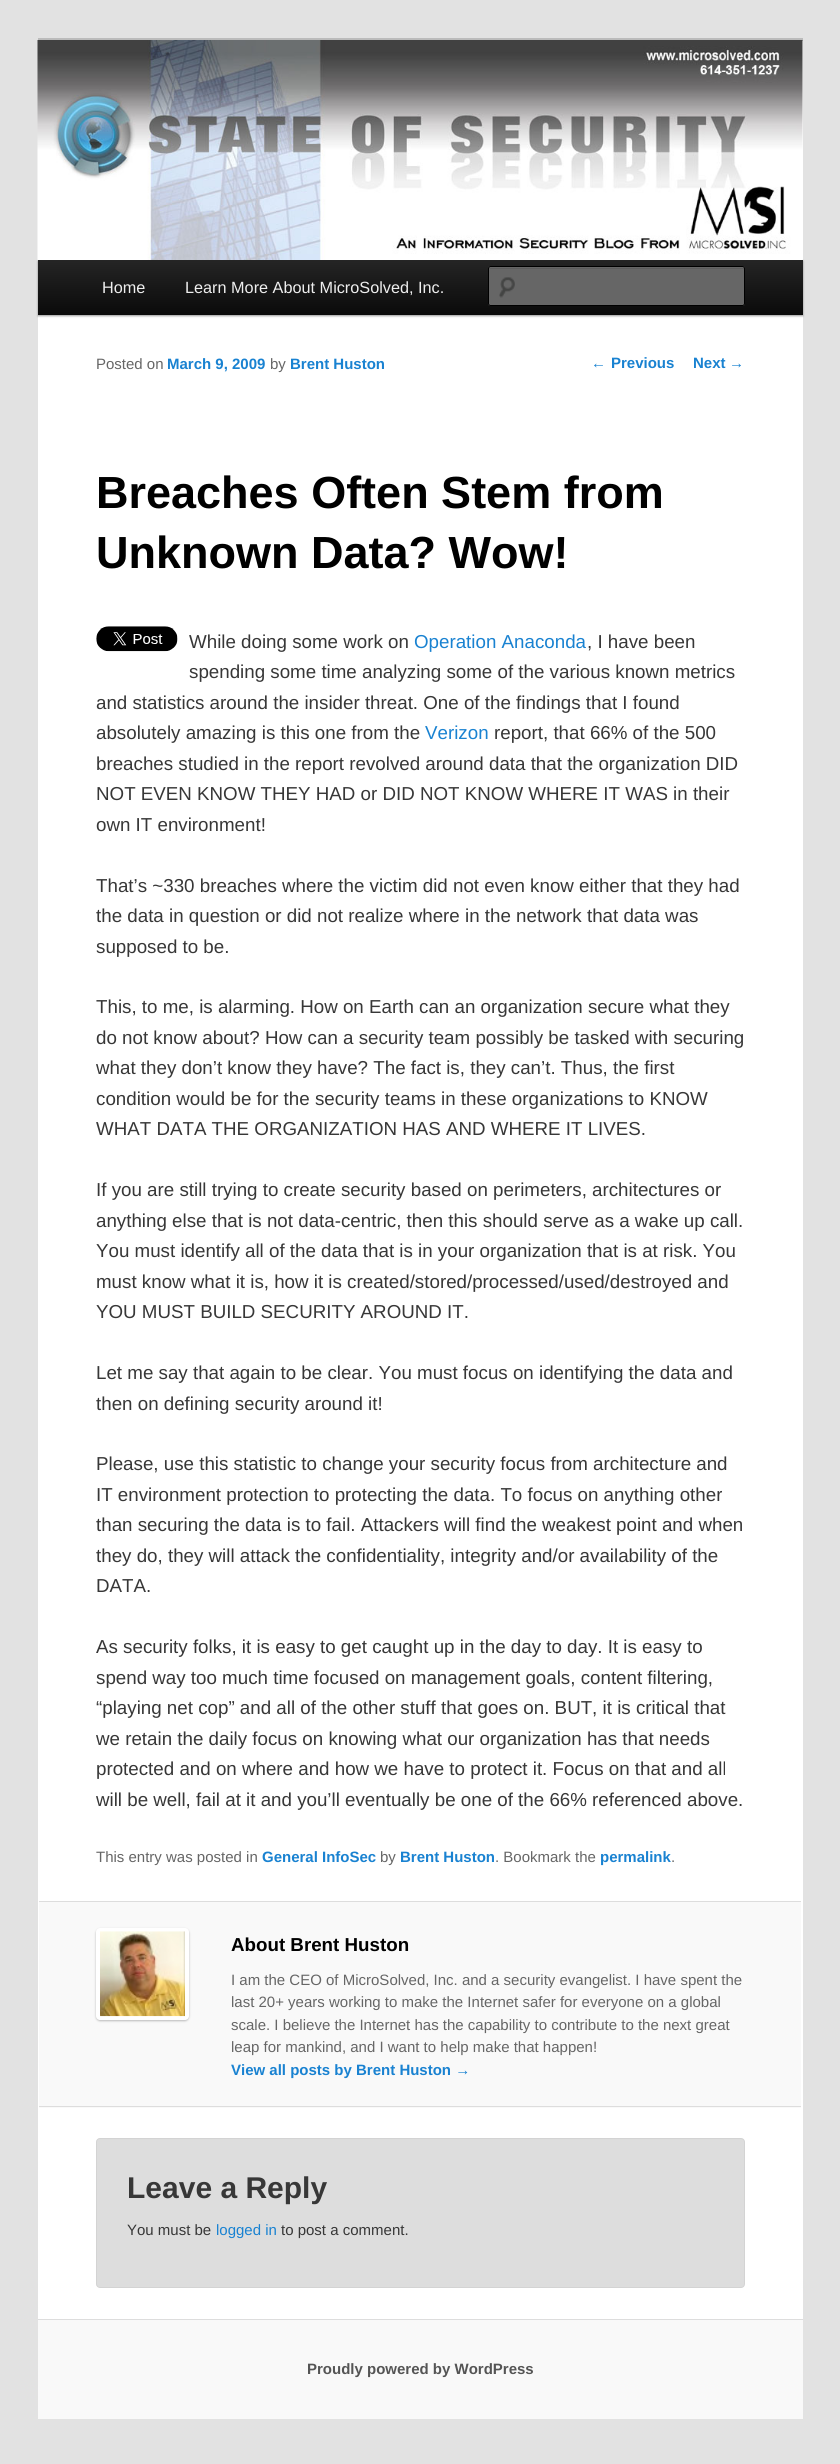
#include <cairo/cairo.h>
#include <math.h>
#include <stddef.h>

typedef struct { double x, y; const char *s; } line_t;
typedef struct { double x, y, w, h; unsigned color; } box_t;
static cairo_t *cr;

static void rgb(unsigned color)
{
	cairo_set_source_rgb(cr, (color >> 16) / 255.0, (color >> 8 & 255) / 255.0, (color & 255) / 255.0);
}

static void rrect(double x, double y, double w, double h, double r)
{
	cairo_new_sub_path(cr);
	cairo_arc(cr, x + w - r, y + h - r, r, 0, M_PI / 2);
	cairo_arc(cr, x + r, y + h - r, r, M_PI / 2, M_PI);
	cairo_arc(cr, x + r, y + r, r, M_PI, 1.5 * M_PI);
	cairo_arc(cr, x + w - r, y + r, r, 1.5 * M_PI, 2 * M_PI);
	cairo_close_path(cr);
}

static void soft_shadow(double x, double y, double w, double h, double r, double blur, double alpha)
{
	cairo_push_group_with_content(cr, CAIRO_CONTENT_ALPHA);
	cairo_set_operator(cr, CAIRO_OPERATOR_SOURCE);
	for (int i = 15; i >= -15 && fmin(w, h) + blur * i / 3 > 0; i -= 2) {
		double e = blur * i / 6;
		cairo_set_source_rgba(cr, 0, 0, 0, alpha * erfc((i - 1) / 8.5) / 2);
		rrect(x - e, y - e, w + 2 * e, h + 2 * e, fmax(0, fmin(r + e + blur * .6, fmin(w, h) / 2 + e)));
		cairo_fill(cr);
	}
	cairo_pattern_t *soft = cairo_pop_group(cr);
	cairo_mask(cr, soft);
	cairo_pattern_destroy(soft);
}

static void image(const char *path, double x, double y, double w, double h)
{
	cairo_surface_t *image = cairo_image_surface_create_from_png(path);
	cairo_save(cr);
	cairo_set_source_surface(cr, image, x, y);
	cairo_rectangle(cr, x, y, w, h);
	cairo_fill(cr);
	cairo_restore(cr);
	cairo_surface_destroy(image);
}

int main(void) {
	cairo_surface_t *surface = cairo_image_surface_create(CAIRO_FORMAT_RGB24, 840, 2464);
	cr = cairo_create(surface);
	cairo_font_options_t *options = cairo_font_options_create();
	cairo_font_options_set_hint_metrics(options, CAIRO_HINT_METRICS_OFF);
	cairo_font_options_set_hint_style(options, CAIRO_HINT_STYLE_NONE);
	cairo_set_font_options(cr, options);
	cairo_set_miter_limit(cr, 4);
	cairo_pattern_t *gradient;
	rgb(0xe2e2e2);
	cairo_paint(cr);
	rgb(0xffffff);
	cairo_rectangle(cr, 38, 41, 765, 2278);
	cairo_fill(cr);
	rgb(0xbbbbbb);
	cairo_rectangle(cr, 38, 38, 765, 3);
	cairo_fill(cr);
	rgb(0x000000);
	soft_shadow(38, 261, 765, 55, 0, 1, 0.4);
	image("img/1.png", 37, 40, 766, 220);
	gradient = cairo_pattern_create_linear(420, 260, 420, 315);
	cairo_pattern_add_color_stop_rgba(gradient, 0, 0.145, 0.145, 0.145, 1);
	cairo_pattern_add_color_stop_rgba(gradient, 1, 0.039, 0.039, 0.039, 1);
	cairo_set_source(cr, gradient);
	cairo_pattern_destroy(gradient);
	cairo_rectangle(cr, 38, 260, 765, 55);
	cairo_fill(cr);
	rgb(0x666666);
	rrect(488, 266, 257, 40, 2.5);
	cairo_fill(cr);
	image("img/2.png", 499, 277, 16, 21);
	rgb(0x5c5c5c);
	cairo_new_path(cr);
	cairo_move_to(cr, 490, 269);
	cairo_line_to(cr, 742, 269);
	cairo_curve_to(cr, 743, 269, 744, 269, 744, 270);
	cairo_line_to(cr, 744, 268);
	cairo_line_to(cr, 490, 268);
	cairo_curve_to(cr, 489, 268, 489, 269, 489, 270);
	cairo_curve_to(cr, 489, 269, 489, 269, 490, 269);
	cairo_close_path(cr);
	cairo_fill(cr);
	rrect(488.5, 266.5, 256, 39, 2);
	rgb(0x000000);
	cairo_set_line_width(cr, 1);
	cairo_stroke(cr);
	image("img/3.png", 96, 626, 82, 26);
	{
		static const box_t items[] = {
			{39, 1902, 762, 206, 0xf9f9f9},
			{39, 1901, 762, 1, 0xdddddd},
			{39, 2106, 762, 1, 0xdddddd},
		};
		for (size_t i = 0; i < sizeof items / sizeof *items; i++) {
			rgb(items[i].color);
			cairo_rectangle(cr, items[i].x, items[i].y, items[i].w, items[i].h);
			cairo_fill(cr);
		}
	}
	rgb(0xbbbbbb);
	soft_shadow(96, 1929, 93, 92, 4, 1, 1);
	rgb(0xffffff);
	rrect(96, 1928, 93, 92, 4);
	cairo_fill(cr);
	image("img/4.png", 100, 1931, 85, 86);
	rgb(0xdddddd);
	rrect(96.5, 2138.5, 648, 149, 3.5);
	cairo_fill_preserve(cr);
	rgb(0xd3d3d3);
	cairo_stroke(cr);
	rgb(0xf9f9f9);
	cairo_rectangle(cr, 38, 2320, 765, 99);
	cairo_fill(cr);
	rgb(0xdddddd);
	cairo_rectangle(cr, 38, 2319, 765, 1);
	cairo_fill(cr);
	cairo_select_font_face(cr, "Liberation Sans", CAIRO_FONT_SLANT_NORMAL, CAIRO_FONT_WEIGHT_NORMAL);
	cairo_set_font_size(cr, 16.25);
	rgb(0xeeeeee);
	cairo_move_to(cr, 102, 293);
	cairo_show_text(cr, "Home");
	cairo_move_to(cr, 185, 293);
	cairo_show_text(cr, "Learn More About MicroSolved, Inc.");
	cairo_set_font_size(cr, 15);
	rgb(0x1982d1);
	cairo_move_to(cr, 591, 368);
	cairo_show_text(cr, "←");
	cairo_select_font_face(cr, "Liberation Sans", CAIRO_FONT_SLANT_NORMAL, CAIRO_FONT_WEIGHT_BOLD);
	cairo_move_to(cr, 611, 368);
	cairo_show_text(cr, "Previous");
	cairo_move_to(cr, 693, 368);
	cairo_show_text(cr, "Next");
	cairo_select_font_face(cr, "Liberation Sans", CAIRO_FONT_SLANT_NORMAL, CAIRO_FONT_WEIGHT_NORMAL);
	cairo_move_to(cr, 729, 368);
	cairo_show_text(cr, "→");
	rgb(0x666666);
	cairo_move_to(cr, 96, 369);
	cairo_show_text(cr, "Posted on");
	cairo_select_font_face(cr, "Liberation Sans", CAIRO_FONT_SLANT_NORMAL, CAIRO_FONT_WEIGHT_BOLD);
	rgb(0x1982d1);
	cairo_move_to(cr, 167, 369);
	cairo_show_text(cr, "March 9, 2009");
	cairo_select_font_face(cr, "Liberation Sans", CAIRO_FONT_SLANT_NORMAL, CAIRO_FONT_WEIGHT_NORMAL);
	rgb(0x666666);
	cairo_move_to(cr, 270, 369);
	cairo_show_text(cr, "by");
	cairo_select_font_face(cr, "Liberation Sans", CAIRO_FONT_SLANT_NORMAL, CAIRO_FONT_WEIGHT_BOLD);
	rgb(0x1982d1);
	cairo_move_to(cr, 290, 369);
	cairo_show_text(cr, "Brent Huston");
	cairo_set_font_size(cr, 45);
	rgb(0x000000);
	cairo_move_to(cr, 96, 508);
	cairo_show_text(cr, "Breaches Often Stem from");
	cairo_move_to(cr, 96, 568);
	cairo_show_text(cr, "Unknown Data? Wow!");
	cairo_select_font_face(cr, "Liberation Sans", CAIRO_FONT_SLANT_NORMAL, CAIRO_FONT_WEIGHT_NORMAL);
	cairo_set_font_size(cr, 18.75);
	rgb(0x373737);
	cairo_move_to(cr, 189, 648);
	cairo_show_text(cr, "While doing some work on");
	rgb(0x1982d1);
	cairo_move_to(cr, 414, 648);
	cairo_show_text(cr, "Operation Anaconda");
	rgb(0x373737);
	{
		static const line_t items[] = {
			{587, 648, ", I have been"},
			{189, 678, "spending some time analyzing some of the various known metrics"},
			{96, 709, "and statistics around the insider threat. One of the findings that I found"},
			{96, 739, "absolutely amazing is this one from the"},
		};
		for (size_t i = 0; i < sizeof items / sizeof *items; i++) {
			cairo_move_to(cr, items[i].x, items[i].y);
			cairo_show_text(cr, items[i].s);
		}
	}
	rgb(0x1982d1);
	cairo_move_to(cr, 425, 739);
	cairo_show_text(cr, "Verizon");
	rgb(0x373737);
	{
		static const line_t items[] = {
			{494, 739, "report, that 66% of the 500"},
			{96, 770, "breaches studied in the report revolved around data that the organization DID"},
			{96, 800, "NOT EVEN KNOW THEY HAD or DID NOT KNOW WHERE IT WAS in their"},
			{96, 831, "own IT environment!"},
			{96, 892, "That’s ~330 breaches where the victim did not even know either that they had"},
			{96, 922, "the data in question or did not realize where in the network that data was"},
			{96, 953, "supposed to be."},
			{96, 1013, "This, to me, is alarming. How on Earth can an organization secure what they"},
			{96, 1044, "do not know about? How can a security team possibly be tasked with securing"},
			{96, 1074, "what they don’t know they have? The fact is, they can’t. Thus, the first"},
			{96, 1105, "condition would be for the security teams in these organizations to KNOW"},
			{96, 1135, "WHAT DATA THE ORGANIZATION HAS AND WHERE IT LIVES."},
			{96, 1196, "If you are still trying to create security based on perimeters, architectures or"},
			{96, 1227, "anything else that is not data-centric, then this should serve as a wake up call."},
			{96, 1257, "You must identify all of the data that is in your organization that is at risk. You"},
			{96, 1288, "must know what it is, how it is created/stored/processed/used/destroyed and"},
			{96, 1318, "YOU MUST BUILD SECURITY AROUND IT."},
			{96, 1379, "Let me say that again to be clear. You must focus on identifying the data and"},
			{96, 1410, "then on defining security around it!"},
			{96, 1470, "Please, use this statistic to change your security focus from architecture and"},
			{96, 1501, "IT environment protection to protecting the data. To focus on anything other"},
			{96, 1531, "than securing the data is to fail. Attackers will find the weakest point and when"},
			{96, 1562, "they do, they will attack the confidentiality, integrity and/or availability of the"},
			{96, 1592, "DATA."},
			{96, 1653, "As security folks, it is easy to get caught up in the day to day. It is easy to"},
			{96, 1684, "spend way too much time focused on management goals, content filtering,"},
			{96, 1714, "“playing net cop” and all of the other stuff that goes on. BUT, it is critical that"},
			{96, 1745, "we retain the daily focus on knowing what our organization has that needs"},
			{96, 1775, "protected and on where and how we have to protect it. Focus on that and all"},
			{96, 1806, "will be well, fail at it and you’ll eventually be one of the 66% referenced above."},
		};
		for (size_t i = 0; i < sizeof items / sizeof *items; i++) {
			cairo_move_to(cr, items[i].x, items[i].y);
			cairo_show_text(cr, items[i].s);
		}
	}
	cairo_set_font_size(cr, 15);
	rgb(0x666666);
	cairo_move_to(cr, 96, 1862);
	cairo_show_text(cr, "This entry was posted in");
	cairo_select_font_face(cr, "Liberation Sans", CAIRO_FONT_SLANT_NORMAL, CAIRO_FONT_WEIGHT_BOLD);
	rgb(0x1982d1);
	cairo_move_to(cr, 262, 1862);
	cairo_show_text(cr, "General InfoSec");
	cairo_select_font_face(cr, "Liberation Sans", CAIRO_FONT_SLANT_NORMAL, CAIRO_FONT_WEIGHT_NORMAL);
	rgb(0x666666);
	cairo_move_to(cr, 380, 1862);
	cairo_show_text(cr, "by");
	cairo_select_font_face(cr, "Liberation Sans", CAIRO_FONT_SLANT_NORMAL, CAIRO_FONT_WEIGHT_BOLD);
	rgb(0x1982d1);
	cairo_move_to(cr, 400, 1862);
	cairo_show_text(cr, "Brent Huston");
	cairo_select_font_face(cr, "Liberation Sans", CAIRO_FONT_SLANT_NORMAL, CAIRO_FONT_WEIGHT_NORMAL);
	rgb(0x666666);
	cairo_move_to(cr, 495, 1862);
	cairo_show_text(cr, ". Bookmark the");
	cairo_select_font_face(cr, "Liberation Sans", CAIRO_FONT_SLANT_NORMAL, CAIRO_FONT_WEIGHT_BOLD);
	rgb(0x1982d1);
	cairo_move_to(cr, 600, 1862);
	cairo_show_text(cr, "permalink");
	cairo_select_font_face(cr, "Liberation Sans", CAIRO_FONT_SLANT_NORMAL, CAIRO_FONT_WEIGHT_NORMAL);
	rgb(0x666666);
	cairo_move_to(cr, 671, 1862);
	cairo_show_text(cr, ".");
	cairo_select_font_face(cr, "Liberation Sans", CAIRO_FONT_SLANT_NORMAL, CAIRO_FONT_WEIGHT_BOLD);
	cairo_set_font_size(cr, 18.75);
	rgb(0x000000);
	cairo_move_to(cr, 231, 1951);
	cairo_show_text(cr, "About Brent Huston");
	cairo_select_font_face(cr, "Liberation Sans", CAIRO_FONT_SLANT_NORMAL, CAIRO_FONT_WEIGHT_NORMAL);
	cairo_set_font_size(cr, 15);
	rgb(0x666666);
	{
		static const line_t items[] = {
			{231, 1985, "I am the CEO of MicroSolved, Inc. and a security evangelist. I have spent the"},
			{231, 2007, "last 20+ years working to make the Internet safer for everyone on a global"},
			{231, 2030, "scale. I believe the Internet has the capability to contribute to the next great"},
			{231, 2052, "leap for mankind, and I want to help make that happen!"},
		};
		for (size_t i = 0; i < sizeof items / sizeof *items; i++) {
			cairo_move_to(cr, items[i].x, items[i].y);
			cairo_show_text(cr, items[i].s);
		}
	}
	cairo_select_font_face(cr, "Liberation Sans", CAIRO_FONT_SLANT_NORMAL, CAIRO_FONT_WEIGHT_BOLD);
	rgb(0x1982d1);
	cairo_move_to(cr, 231, 2075);
	cairo_show_text(cr, "View all posts by Brent Huston →");
	cairo_set_font_size(cr, 30);
	rgb(0x373737);
	cairo_move_to(cr, 127, 2198);
	cairo_show_text(cr, "Leave a Reply");
	cairo_select_font_face(cr, "Liberation Sans", CAIRO_FONT_SLANT_NORMAL, CAIRO_FONT_WEIGHT_NORMAL);
	cairo_set_font_size(cr, 15);
	cairo_move_to(cr, 127, 2235);
	cairo_show_text(cr, "You must be");
	rgb(0x1982d1);
	cairo_move_to(cr, 216, 2235);
	cairo_show_text(cr, "logged in");
	rgb(0x373737);
	cairo_move_to(cr, 281, 2235);
	cairo_show_text(cr, "to post a comment.");
	cairo_select_font_face(cr, "Liberation Sans", CAIRO_FONT_SLANT_NORMAL, CAIRO_FONT_WEIGHT_BOLD);
	rgb(0x555555);
	cairo_move_to(cr, 307, 2374);
	cairo_show_text(cr, "Proudly powered by WordPress");
	cairo_surface_write_to_png(surface, "page.png");
	cairo_font_options_destroy(options);
	cairo_destroy(cr);
	cairo_surface_destroy(surface);
	return 0;
}
